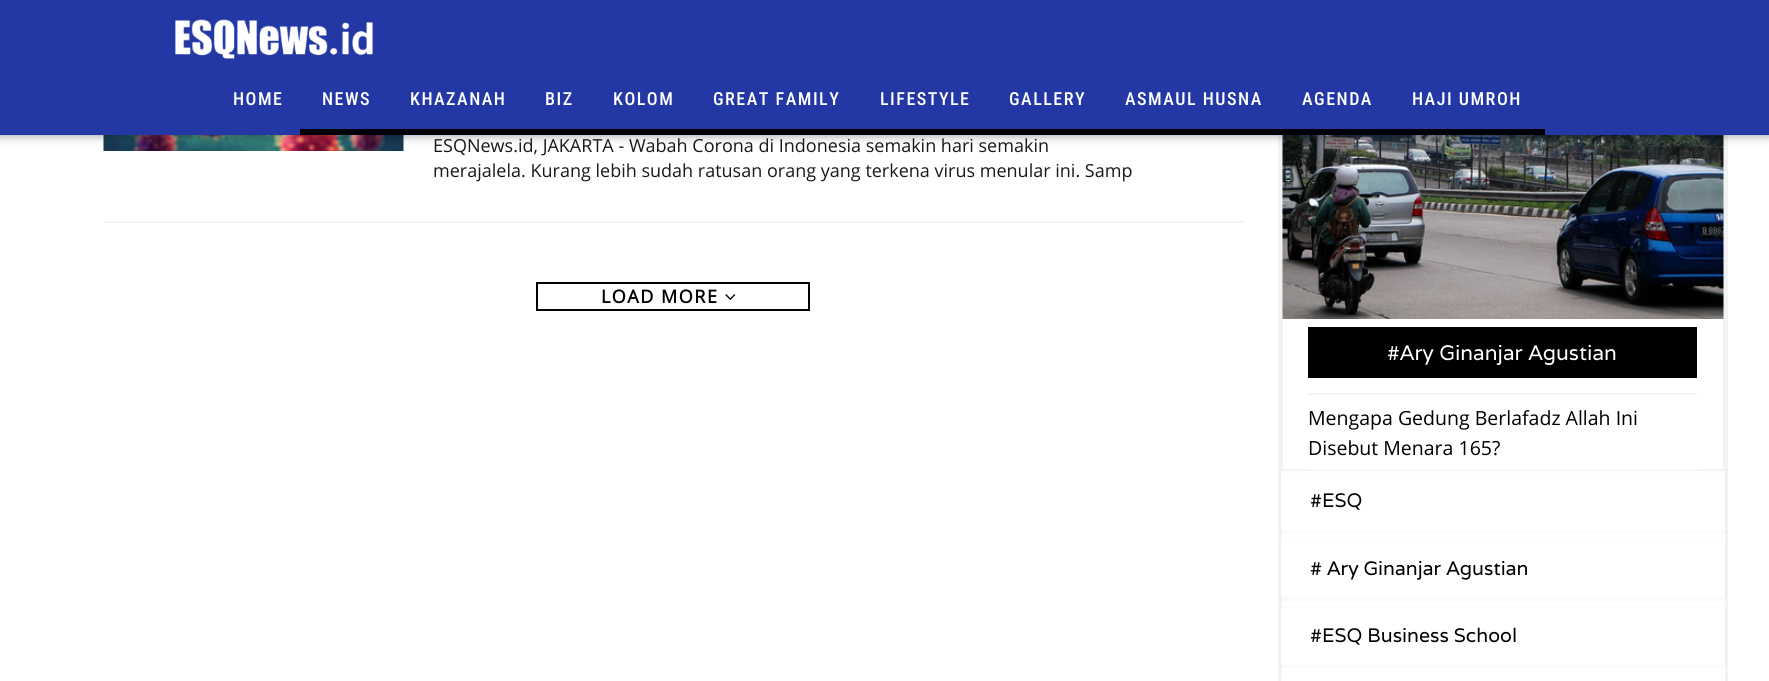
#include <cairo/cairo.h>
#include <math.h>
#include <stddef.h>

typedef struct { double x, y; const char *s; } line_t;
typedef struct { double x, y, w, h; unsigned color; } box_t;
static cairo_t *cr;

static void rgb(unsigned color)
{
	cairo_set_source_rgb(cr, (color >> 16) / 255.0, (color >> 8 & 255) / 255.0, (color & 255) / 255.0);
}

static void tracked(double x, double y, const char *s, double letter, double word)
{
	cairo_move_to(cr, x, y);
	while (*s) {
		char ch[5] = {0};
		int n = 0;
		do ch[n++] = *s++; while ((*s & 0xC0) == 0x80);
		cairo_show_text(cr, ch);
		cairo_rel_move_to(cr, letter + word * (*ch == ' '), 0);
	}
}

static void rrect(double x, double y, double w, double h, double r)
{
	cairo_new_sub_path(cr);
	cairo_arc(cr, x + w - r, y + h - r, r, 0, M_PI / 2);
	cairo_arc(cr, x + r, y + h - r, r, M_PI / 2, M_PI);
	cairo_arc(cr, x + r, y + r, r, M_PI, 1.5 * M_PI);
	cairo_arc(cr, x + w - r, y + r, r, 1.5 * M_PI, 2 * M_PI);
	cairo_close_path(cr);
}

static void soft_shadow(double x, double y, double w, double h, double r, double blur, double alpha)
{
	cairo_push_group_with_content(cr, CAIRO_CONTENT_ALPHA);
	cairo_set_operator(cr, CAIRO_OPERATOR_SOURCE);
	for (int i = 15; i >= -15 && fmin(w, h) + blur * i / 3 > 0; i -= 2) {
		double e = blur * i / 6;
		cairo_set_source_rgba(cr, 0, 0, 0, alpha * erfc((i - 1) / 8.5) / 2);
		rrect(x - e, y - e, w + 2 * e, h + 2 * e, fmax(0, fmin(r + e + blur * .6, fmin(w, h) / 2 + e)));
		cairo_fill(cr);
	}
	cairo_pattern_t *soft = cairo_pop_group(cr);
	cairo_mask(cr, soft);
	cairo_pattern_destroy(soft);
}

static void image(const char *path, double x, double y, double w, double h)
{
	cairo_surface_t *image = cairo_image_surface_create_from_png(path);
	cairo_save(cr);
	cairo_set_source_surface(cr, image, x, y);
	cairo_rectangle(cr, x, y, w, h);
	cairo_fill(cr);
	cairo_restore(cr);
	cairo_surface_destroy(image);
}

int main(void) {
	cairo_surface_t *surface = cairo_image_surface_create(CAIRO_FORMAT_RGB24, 1769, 681);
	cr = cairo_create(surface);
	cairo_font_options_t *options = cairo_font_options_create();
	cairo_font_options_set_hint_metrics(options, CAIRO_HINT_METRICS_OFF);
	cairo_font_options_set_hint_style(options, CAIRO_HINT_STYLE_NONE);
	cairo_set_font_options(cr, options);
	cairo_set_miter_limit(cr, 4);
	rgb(0xffffff);
	cairo_paint(cr);
	image("img/2.png", 103, 135, 301, 16);
	cairo_rectangle(cr, 1279, -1, 448, 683);
	rgb(0xf3f3f3);
	cairo_stroke(cr);
	cairo_rectangle(cr, 1281, -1, 445, 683);
	cairo_stroke(cr);
	cairo_rectangle(cr, 1282, -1, 442, 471);
	cairo_stroke(cr);
	image("img/4.png", 1282, 135, 442, 184);
	rgb(0x000000);
	soft_shadow(0, 0, 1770, 135, 0, 5, 0.45);
	rgb(0x2338a4);
	cairo_rectangle(cr, 0, 0, 1769, 135);
	cairo_fill(cr);
	image("img/1.png", 175, 19, 198, 40);
	rgb(0x000000);
	cairo_rectangle(cr, 300, 129, 1245, 6);
	cairo_fill(cr);
	rgb(0xf3f3f3);
	cairo_rectangle(cr, 104, 221, 1140, 2);
	cairo_fill(cr);
	cairo_rectangle(cr, 537, 283, 272, 27);
	rgb(0x000000);
	cairo_stroke(cr);
	image("img/3.png", 725, 294, 11, 6);
	rgb(0x000000);
	soft_shadow(1281, 474, 444, 57, 0, 3, 0.04);
	{
		static const box_t items[] = {
			{1308, 469, 389, 1, 0xffffff},
			{1308, 327, 389, 51, 0x000000},
			{1308, 393, 389, 2, 0xf3f3f3},
			{1281, 473, 444, 57, 0xffffff},
		};
		for (size_t i = 0; i < sizeof items / sizeof *items; i++) {
			rgb(items[i].color);
			cairo_rectangle(cr, items[i].x, items[i].y, items[i].w, items[i].h);
			cairo_fill(cr);
		}
	}
	rgb(0x000000);
	soft_shadow(1281, 542, 444, 57, 0, 3, 0.04);
	rgb(0xffffff);
	cairo_rectangle(cr, 1281, 540, 444, 57);
	cairo_fill(cr);
	rgb(0x000000);
	soft_shadow(1281, 609, 444, 57, 0, 3, 0.04);
	rgb(0xffffff);
	cairo_rectangle(cr, 1281, 608, 444, 57);
	cairo_fill(cr);
	cairo_rectangle(cr, 1281, 675, 1, 6);
	cairo_fill(cr);
	cairo_select_font_face(cr, "Roboto Condensed Medium", CAIRO_FONT_SLANT_NORMAL, CAIRO_FONT_WEIGHT_NORMAL);
	cairo_set_font_size(cr, 18);
	{
		static const line_t items[] = {
			{233, 105, "HOME"},
			{322, 105, "NEWS"},
			{410, 105, "KHAZANAH"},
			{545, 105, "BIZ"},
			{613, 105, "KOLOM"},
			{713, 105, "GREAT FAMILY"},
			{880, 105, "LIFESTYLE"},
			{1009, 105, "GALLERY"},
			{1125, 105, "ASMAUL HUSNA"},
			{1302, 105, "AGENDA"},
			{1412, 105, "HAJI UMROH"},
		};
		for (size_t i = 0; i < sizeof items / sizeof *items; i++) {
			tracked(items[i].x, items[i].y, items[i].s, 1.5, 0);
		}
	}
	cairo_select_font_face(cr, "Open Sans", CAIRO_FONT_SLANT_NORMAL, CAIRO_FONT_WEIGHT_NORMAL);
	rgb(0x191919);
	cairo_move_to(cr, 433, 152);
	cairo_show_text(cr, "ESQNews.id, JAKARTA - Wabah Corona di Indonesia semakin hari semakin");
	cairo_move_to(cr, 433, 177);
	cairo_show_text(cr, "merajalela. Kurang lebih sudah ratusan orang yang terkena virus menular ini. Samp");
	cairo_select_font_face(cr, "Open Sans", CAIRO_FONT_SLANT_NORMAL, CAIRO_FONT_WEIGHT_BOLD);
	rgb(0x000000);
	tracked(601, 303, "LOAD MORE", 1.5, 0);
	cairo_select_font_face(cr, "Varela", CAIRO_FONT_SLANT_NORMAL, CAIRO_FONT_WEIGHT_NORMAL);
	cairo_set_font_size(cr, 21);
	rgb(0xffffff);
	cairo_move_to(cr, 1387, 360);
	cairo_show_text(cr, "#Ary Ginanjar Agustian");
	cairo_select_font_face(cr, "Open Sans", CAIRO_FONT_SLANT_NORMAL, CAIRO_FONT_WEIGHT_NORMAL);
	cairo_set_font_size(cr, 19.5);
	rgb(0x000000);
	cairo_move_to(cr, 1308, 425);
	cairo_show_text(cr, "Mengapa Gedung Berlafadz Allah Ini");
	cairo_move_to(cr, 1308, 455);
	cairo_show_text(cr, "Disebut Menara 165?");
	cairo_select_font_face(cr, "Varela", CAIRO_FONT_SLANT_NORMAL, CAIRO_FONT_WEIGHT_NORMAL);
	{
		static const line_t items[] = {
			{1310, 507, "#ESQ"},
			{1310, 575, "# Ary Ginanjar Agustian"},
			{1310, 642, "#ESQ Business School"},
		};
		for (size_t i = 0; i < sizeof items / sizeof *items; i++) {
			cairo_move_to(cr, items[i].x, items[i].y);
			cairo_show_text(cr, items[i].s);
		}
	}
	cairo_surface_write_to_png(surface, "page.png");
	cairo_font_options_destroy(options);
	cairo_destroy(cr);
	cairo_surface_destroy(surface);
	return 0;
}
